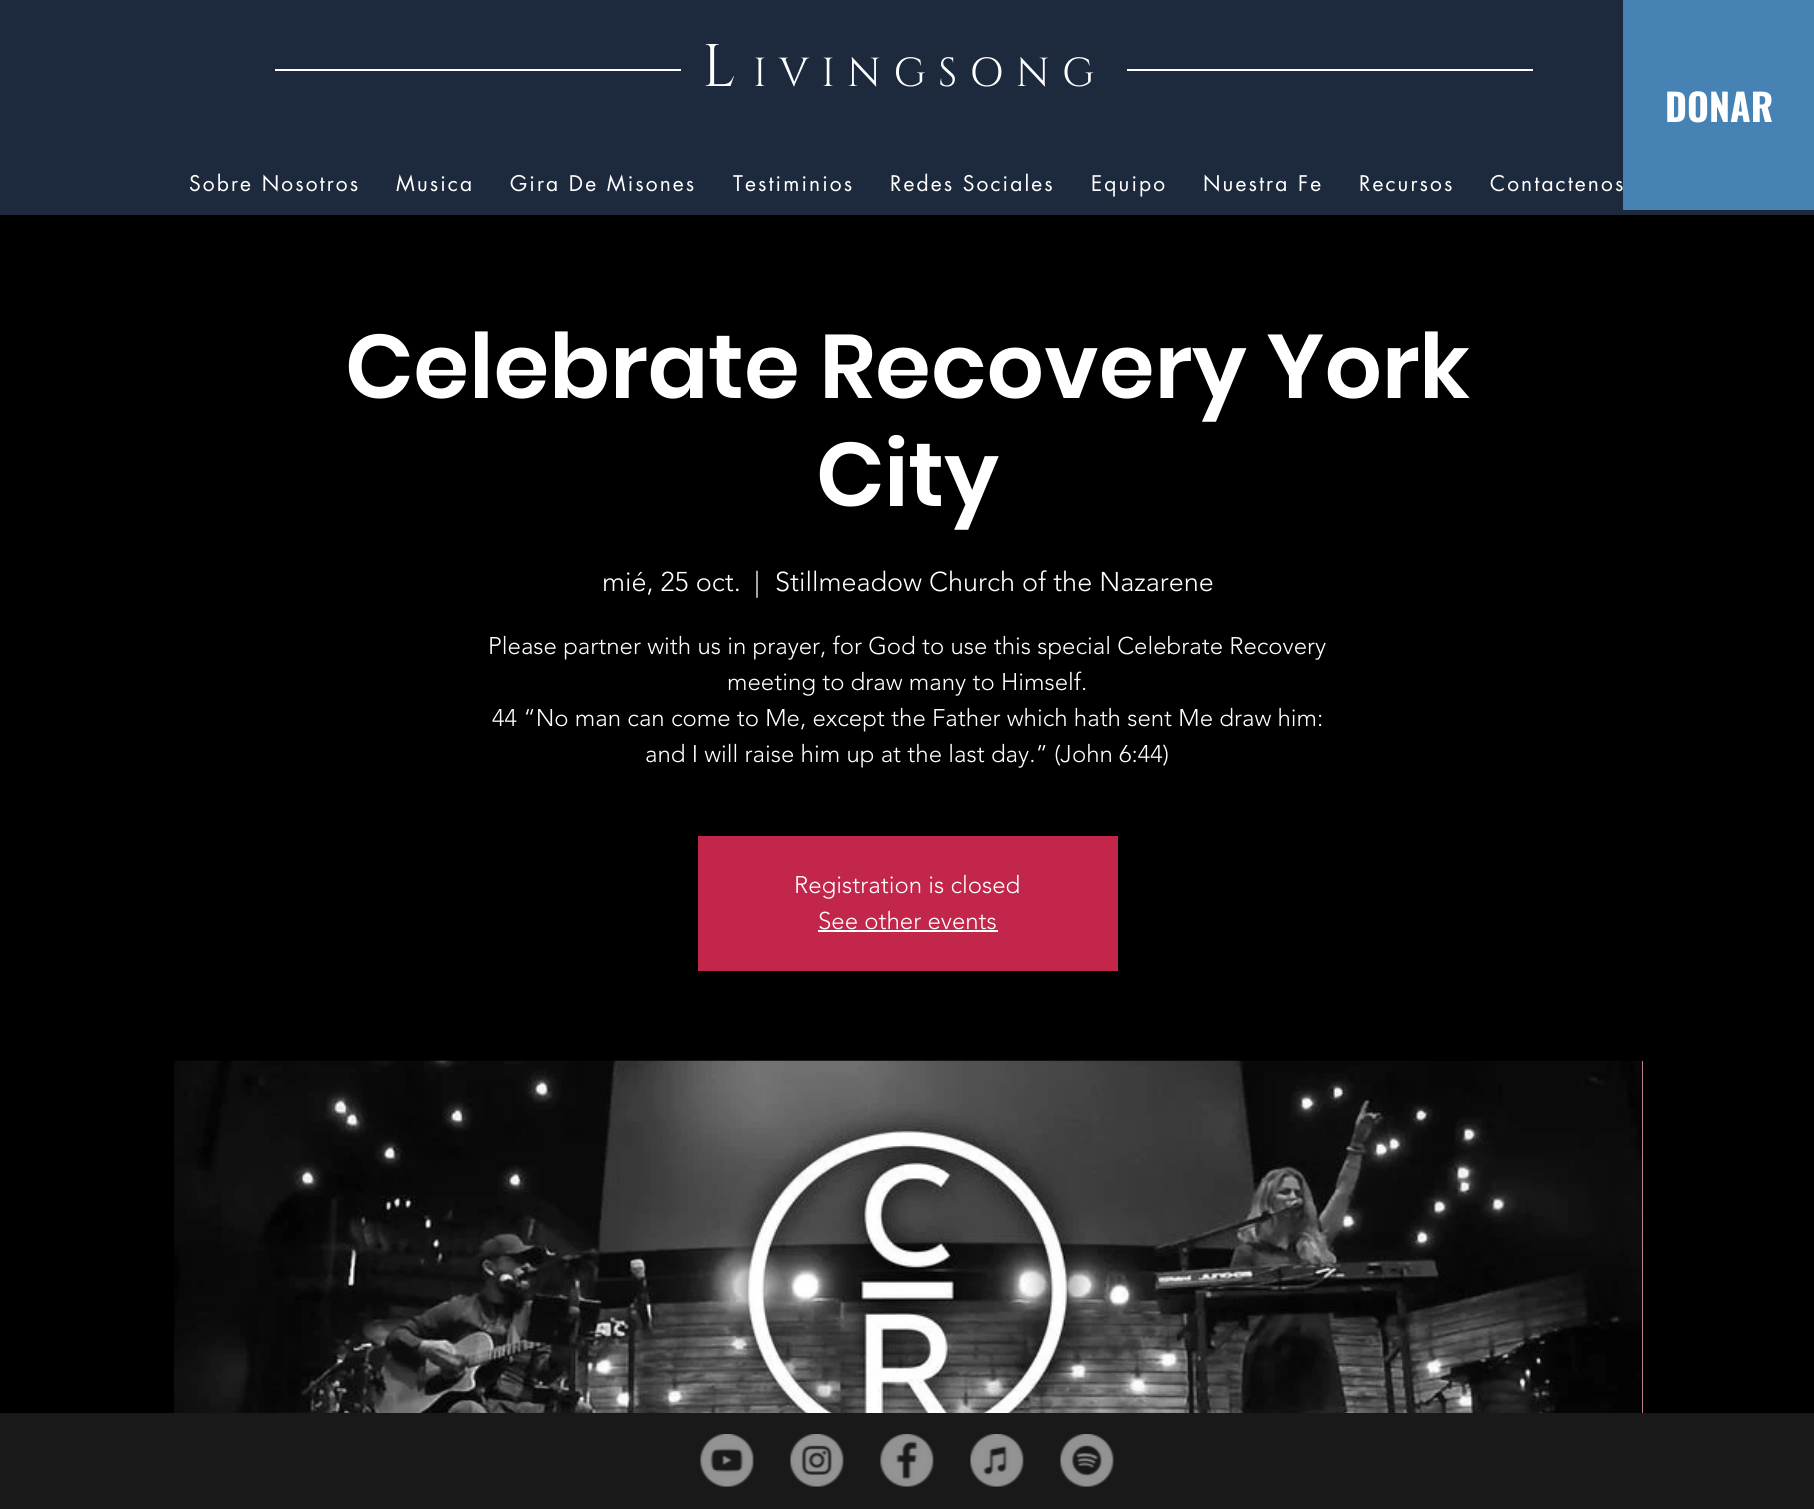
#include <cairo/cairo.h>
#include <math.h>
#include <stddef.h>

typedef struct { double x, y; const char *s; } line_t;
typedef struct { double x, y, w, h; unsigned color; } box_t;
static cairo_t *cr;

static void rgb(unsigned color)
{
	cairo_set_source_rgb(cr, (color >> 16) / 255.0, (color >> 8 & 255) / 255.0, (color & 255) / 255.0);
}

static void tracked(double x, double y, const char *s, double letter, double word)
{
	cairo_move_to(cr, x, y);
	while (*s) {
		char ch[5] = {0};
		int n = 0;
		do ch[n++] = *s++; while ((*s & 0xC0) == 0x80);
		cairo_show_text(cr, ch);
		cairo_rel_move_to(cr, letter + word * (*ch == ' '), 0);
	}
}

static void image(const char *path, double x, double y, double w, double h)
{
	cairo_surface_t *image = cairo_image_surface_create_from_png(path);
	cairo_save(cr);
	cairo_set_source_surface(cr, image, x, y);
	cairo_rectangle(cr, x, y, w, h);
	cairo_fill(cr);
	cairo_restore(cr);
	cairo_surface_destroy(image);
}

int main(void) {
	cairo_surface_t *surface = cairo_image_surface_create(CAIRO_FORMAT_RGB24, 1814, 1509);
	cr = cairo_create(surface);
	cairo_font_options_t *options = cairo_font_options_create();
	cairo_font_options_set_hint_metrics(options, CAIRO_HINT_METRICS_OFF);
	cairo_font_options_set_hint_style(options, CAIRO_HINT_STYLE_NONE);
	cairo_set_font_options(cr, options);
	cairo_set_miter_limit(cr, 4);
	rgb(0x000000);
	cairo_paint(cr);
	{
		static const box_t items[] = {
			{0, 0, 1814, 215, 0x1d2a3e},
			{275, 69, 406, 2, 0xffffff},
			{1127, 69, 406, 2, 0xffffff},
			{1623, 0, 191, 210, 0x4682b4},
			{698, 836, 420, 135, 0xc2274b},
			{818, 930, 180, 2, 0xffffff},
			{1642, 1061, 1, 352, 0xf5a6bd},
		};
		for (size_t i = 0; i < sizeof items / sizeof *items; i++) {
			rgb(items[i].color);
			cairo_rectangle(cr, items[i].x, items[i].y, items[i].w, items[i].h);
			cairo_fill(cr);
		}
	}
	image("img/1.png", 174, 1060, 1469, 353);
	rgb(0x191919);
	cairo_rectangle(cr, 0, 1413, 1814, 96);
	cairo_fill(cr);
	image("img/2.png", 700, 1434, 54, 53);
	image("img/3.png", 790, 1434, 54, 53);
	image("img/4.png", 880, 1434, 54, 53);
	image("img/5.png", 970, 1434, 54, 53);
	image("img/6.png", 1060, 1434, 54, 53);
	cairo_select_font_face(cr, "Cinzel", CAIRO_FONT_SLANT_NORMAL, CAIRO_FONT_WEIGHT_NORMAL);
	cairo_set_font_size(cr, 60);
	rgb(0xffffff);
	tracked(702, 86, "L", 18, 0);
	cairo_set_font_size(cr, 40.5);
	tracked(753, 86, "IVINGSONG", 12.25, 0);
	cairo_select_font_face(cr, "futura", CAIRO_FONT_SLANT_NORMAL, CAIRO_FONT_WEIGHT_NORMAL);
	cairo_set_font_size(cr, 21);
	{
		static const line_t items[] = {
			{189, 191, "Sobre Nosotros"},
			{396, 191, "Musica"},
			{510, 191, "Gira De Misones"},
			{733, 191, "Testiminios"},
			{890, 191, "Redes Sociales"},
			{1091, 191, "Equipo"},
			{1203, 191, "Nuestra Fe"},
			{1359, 191, "Recursos"},
			{1490, 191, "Contactenos"},
		};
		for (size_t i = 0; i < sizeof items / sizeof *items; i++) {
			tracked(items[i].x, items[i].y, items[i].s, 2.1, 0);
		}
	}
	cairo_select_font_face(cr, "Oswald", CAIRO_FONT_SLANT_NORMAL, CAIRO_FONT_WEIGHT_BOLD);
	cairo_set_font_size(cr, 37.5);
	cairo_move_to(cr, 1665, 122);
	cairo_show_text(cr, "DONAR");
	cairo_select_font_face(cr, "Poppins SemiBold", CAIRO_FONT_SLANT_NORMAL, CAIRO_FONT_WEIGHT_NORMAL);
	cairo_set_font_size(cr, 90);
	cairo_move_to(cr, 345, 398);
	cairo_show_text(cr, "Celebrate Recovery York");
	cairo_move_to(cr, 816, 506);
	cairo_show_text(cr, "City");
	cairo_select_font_face(cr, "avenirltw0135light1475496 Light", CAIRO_FONT_SLANT_NORMAL, CAIRO_FONT_WEIGHT_NORMAL);
	cairo_set_font_size(cr, 27);
	{
		static const line_t items[] = {
			{602, 591, "mié, 25 oct."},
			{754, 591, "|"},
			{775, 591, "Stillmeadow Church of the Nazarene"},
		};
		for (size_t i = 0; i < sizeof items / sizeof *items; i++) {
			cairo_move_to(cr, items[i].x, items[i].y);
			cairo_show_text(cr, items[i].s);
		}
	}
	cairo_set_font_size(cr, 24);
	{
		static const line_t items[] = {
			{488, 654, "Please partner with us in prayer, for God to use this special Celebrate Recovery"},
			{727, 690, "meeting to draw many to Himself."},
			{492, 726, "44 “No man can come to Me, except the Father which hath sent Me draw him:"},
			{645, 762, "and I will raise him up at the last day.” (John 6:44)"},
			{794, 893, "Registration is closed"},
			{818, 929, "See other events"},
		};
		for (size_t i = 0; i < sizeof items / sizeof *items; i++) {
			cairo_move_to(cr, items[i].x, items[i].y);
			cairo_show_text(cr, items[i].s);
		}
	}
	cairo_surface_write_to_png(surface, "page.png");
	cairo_font_options_destroy(options);
	cairo_destroy(cr);
	cairo_surface_destroy(surface);
	return 0;
}
